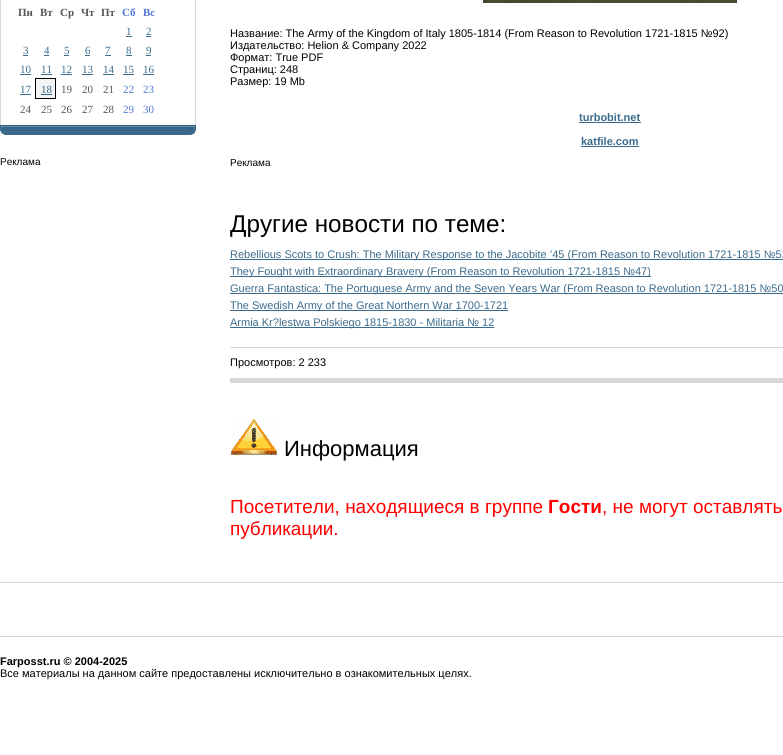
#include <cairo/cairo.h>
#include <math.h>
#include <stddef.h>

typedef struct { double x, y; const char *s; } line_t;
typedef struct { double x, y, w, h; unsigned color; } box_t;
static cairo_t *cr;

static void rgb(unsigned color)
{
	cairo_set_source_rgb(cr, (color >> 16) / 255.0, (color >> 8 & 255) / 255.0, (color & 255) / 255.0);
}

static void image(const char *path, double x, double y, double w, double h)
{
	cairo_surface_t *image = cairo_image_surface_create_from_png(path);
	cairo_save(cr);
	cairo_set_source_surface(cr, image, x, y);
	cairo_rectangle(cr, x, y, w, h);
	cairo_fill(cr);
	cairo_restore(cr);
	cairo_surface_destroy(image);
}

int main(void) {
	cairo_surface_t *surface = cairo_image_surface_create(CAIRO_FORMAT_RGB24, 783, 755);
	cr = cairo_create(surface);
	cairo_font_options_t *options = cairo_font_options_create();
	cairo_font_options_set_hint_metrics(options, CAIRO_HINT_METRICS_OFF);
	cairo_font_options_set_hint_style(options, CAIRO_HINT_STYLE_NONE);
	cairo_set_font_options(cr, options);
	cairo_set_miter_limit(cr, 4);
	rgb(0xffffff);
	cairo_paint(cr);
	{
		static const box_t items[] = {
			{195, 0, 1, 125, 0xd7d7d7},
			{0, 0, 1, 125, 0xd7d7d7},
			{126, 36, 6, 1, 0x3b6b8c},
			{146, 36, 5, 1, 0x3b6b8c},
			{23, 55, 5, 1, 0x3b6b8c},
			{44, 55, 5, 1, 0x3b6b8c},
			{64, 55, 5, 1, 0x3b6b8c},
			{85, 55, 5, 1, 0x3b6b8c},
			{105, 55, 6, 1, 0x3b6b8c},
			{126, 55, 6, 1, 0x3b6b8c},
			{146, 55, 5, 1, 0x3b6b8c},
			{20, 74, 11, 1, 0x3b6b8c},
			{41, 74, 11, 1, 0x3b6b8c},
			{61, 74, 11, 1, 0x3b6b8c},
			{82, 74, 11, 1, 0x3b6b8c},
			{103, 74, 11, 1, 0x3b6b8c},
			{123, 74, 11, 1, 0x3b6b8c},
			{143, 74, 11, 1, 0x3b6b8c},
			{20, 94, 11, 1, 0x3b6b8c},
			{36, 79, 19, 19, 0xf4f4f4},
			{35, 78, 21, 1, 0x000000},
			{55, 78, 1, 21, 0x000000},
			{35, 98, 21, 1, 0x000000},
			{35, 78, 1, 21, 0x000000},
			{41, 94, 11, 1, 0x3b6b8c},
		};
		for (size_t i = 0; i < sizeof items / sizeof *items; i++) {
			rgb(items[i].color);
			cairo_rectangle(cr, items[i].x, items[i].y, items[i].w, items[i].h);
			cairo_fill(cr);
		}
	}
	image("img/1.png", 0, 125, 196, 10);
	image("img/2.png", 483, 0, 254, 3);
	{
		static const box_t items[] = {
			{579, 122, 62, 1, 0x3b6b8c},
			{581, 146, 58, 1, 0x3b6b8c},
			{230, 259, 553, 1, 0x3b6b8c},
			{230, 276, 421, 1, 0x3b6b8c},
			{230, 293, 553, 1, 0x3b6b8c},
			{230, 310, 278, 1, 0x3b6b8c},
			{230, 327, 264, 1, 0x3b6b8c},
			{230, 347, 553, 1, 0xd7d7d7},
			{230, 378, 553, 5, 0xd7d7d7},
		};
		for (size_t i = 0; i < sizeof items / sizeof *items; i++) {
			rgb(items[i].color);
			cairo_rectangle(cr, items[i].x, items[i].y, items[i].w, items[i].h);
			cairo_fill(cr);
		}
	}
	image("img/3.png", 231, 419, 47, 37);
	cairo_rectangle(cr, 0, 582, 783, 1);
	cairo_fill(cr);
	cairo_rectangle(cr, 0, 636, 783, 1);
	cairo_fill(cr);
	cairo_select_font_face(cr, "Liberation Serif", CAIRO_FONT_SLANT_NORMAL, CAIRO_FONT_WEIGHT_BOLD);
	cairo_set_font_size(cr, 11);
	rgb(0x555555);
	{
		static const line_t items[] = {
			{18, 16, "Пн"},
			{40, 16, "Вт"},
			{60, 16, "Ср"},
			{81, 16, "Чт"},
			{101, 16, "Пт"},
		};
		for (size_t i = 0; i < sizeof items / sizeof *items; i++) {
			cairo_move_to(cr, items[i].x, items[i].y);
			cairo_show_text(cr, items[i].s);
		}
	}
	rgb(0x5078d5);
	cairo_move_to(cr, 122, 16);
	cairo_show_text(cr, "Сб");
	cairo_move_to(cr, 143, 16);
	cairo_show_text(cr, "Вс");
	cairo_select_font_face(cr, "Liberation Serif", CAIRO_FONT_SLANT_NORMAL, CAIRO_FONT_WEIGHT_NORMAL);
	rgb(0x3b6b8c);
	{
		static const line_t items[] = {
			{126, 35, "1"},
			{146, 35, "2"},
			{23, 54, "3"},
			{44, 54, "4"},
			{64, 54, "5"},
			{85, 54, "6"},
			{105, 54, "7"},
			{126, 54, "8"},
			{146, 54, "9"},
			{20, 73, "10"},
			{41, 73, "11"},
			{61, 73, "12"},
			{82, 73, "13"},
			{103, 73, "14"},
			{123, 73, "15"},
			{143, 73, "16"},
			{20, 93, "17"},
			{41, 93, "18"},
		};
		for (size_t i = 0; i < sizeof items / sizeof *items; i++) {
			cairo_move_to(cr, items[i].x, items[i].y);
			cairo_show_text(cr, items[i].s);
		}
	}
	rgb(0x555555);
	{
		static const line_t items[] = {
			{61, 93, "19"},
			{82, 93, "20"},
			{103, 93, "21"},
		};
		for (size_t i = 0; i < sizeof items / sizeof *items; i++) {
			cairo_move_to(cr, items[i].x, items[i].y);
			cairo_show_text(cr, items[i].s);
		}
	}
	rgb(0x5078d5);
	cairo_move_to(cr, 123, 93);
	cairo_show_text(cr, "22");
	cairo_move_to(cr, 143, 93);
	cairo_show_text(cr, "23");
	rgb(0x555555);
	{
		static const line_t items[] = {
			{20, 113, "24"},
			{41, 113, "25"},
			{61, 113, "26"},
			{82, 113, "27"},
			{103, 113, "28"},
		};
		for (size_t i = 0; i < sizeof items / sizeof *items; i++) {
			cairo_move_to(cr, items[i].x, items[i].y);
			cairo_show_text(cr, items[i].s);
		}
	}
	rgb(0x5078d5);
	cairo_move_to(cr, 123, 113);
	cairo_show_text(cr, "29");
	cairo_move_to(cr, 143, 113);
	cairo_show_text(cr, "30");
	cairo_select_font_face(cr, "Liberation Sans", CAIRO_FONT_SLANT_NORMAL, CAIRO_FONT_WEIGHT_NORMAL);
	cairo_set_font_size(cr, 10);
	rgb(0x000000);
	cairo_move_to(cr, 0, 165);
	cairo_show_text(cr, "Реклама");
	cairo_set_font_size(cr, 11);
	{
		static const line_t items[] = {
			{230, 37, "Название: The Army of the Kingdom of Italy 1805-1814 (From Reason to Revolution 1721-1815 №92)"},
			{230, 49, "Издательство: Helion & Company 2022"},
			{230, 61, "Формат: True PDF"},
			{230, 73, "Страниц: 248"},
			{230, 85, "Размер: 19 Mb"},
		};
		for (size_t i = 0; i < sizeof items / sizeof *items; i++) {
			cairo_move_to(cr, items[i].x, items[i].y);
			cairo_show_text(cr, items[i].s);
		}
	}
	cairo_select_font_face(cr, "Liberation Sans", CAIRO_FONT_SLANT_NORMAL, CAIRO_FONT_WEIGHT_BOLD);
	rgb(0x3b6b8c);
	cairo_move_to(cr, 579, 121);
	cairo_show_text(cr, "turbobit.net");
	cairo_move_to(cr, 581, 145);
	cairo_show_text(cr, "katfile.com");
	cairo_select_font_face(cr, "Liberation Sans", CAIRO_FONT_SLANT_NORMAL, CAIRO_FONT_WEIGHT_NORMAL);
	cairo_set_font_size(cr, 10);
	rgb(0x000000);
	cairo_move_to(cr, 230, 166);
	cairo_show_text(cr, "Реклама");
	cairo_set_font_size(cr, 24.25);
	cairo_move_to(cr, 230, 232);
	cairo_show_text(cr, "Другие новости по теме:");
	cairo_set_font_size(cr, 11);
	rgb(0x3b6b8c);
	{
		static const line_t items[] = {
			{230, 258, "Rebellious Scots to Crush: The Military Response to the Jacobite ’45 (From Reason to Revolution 1721-1815 №52"},
			{230, 275, "They Fought with Extraordinary Bravery (From Reason to Revolution 1721-1815 №47)"},
			{230, 292, "Guerra Fantastica: The Portuguese Army and the Seven Years War (From Reason to Revolution 1721-1815 №50"},
			{230, 309, "The Swedish Army of the Great Northern War 1700-1721"},
			{230, 326, "Armia Kr?lestwa Polskiego 1815-1830 - Militaria № 12"},
		};
		for (size_t i = 0; i < sizeof items / sizeof *items; i++) {
			cairo_move_to(cr, items[i].x, items[i].y);
			cairo_show_text(cr, items[i].s);
		}
	}
	rgb(0x000000);
	cairo_move_to(cr, 230, 366);
	cairo_show_text(cr, "Просмотров: 2 233");
	cairo_set_font_size(cr, 22);
	cairo_move_to(cr, 284, 456);
	cairo_show_text(cr, "Информация");
	cairo_set_font_size(cr, 19);
	rgb(0xff0000);
	cairo_move_to(cr, 230, 513);
	cairo_show_text(cr, "Посетители, находящиеся в группе");
	cairo_select_font_face(cr, "Liberation Sans", CAIRO_FONT_SLANT_NORMAL, CAIRO_FONT_WEIGHT_BOLD);
	cairo_move_to(cr, 548, 513);
	cairo_show_text(cr, "Гости");
	cairo_select_font_face(cr, "Liberation Sans", CAIRO_FONT_SLANT_NORMAL, CAIRO_FONT_WEIGHT_NORMAL);
	cairo_move_to(cr, 602, 513);
	cairo_show_text(cr, ", не могут оставлять");
	cairo_move_to(cr, 230, 535);
	cairo_show_text(cr, "публикации.");
	cairo_select_font_face(cr, "Liberation Sans", CAIRO_FONT_SLANT_NORMAL, CAIRO_FONT_WEIGHT_BOLD);
	cairo_set_font_size(cr, 11);
	rgb(0x000000);
	cairo_move_to(cr, 0, 665);
	cairo_show_text(cr, "Farposst.ru © 2004-2025");
	cairo_select_font_face(cr, "Liberation Sans", CAIRO_FONT_SLANT_NORMAL, CAIRO_FONT_WEIGHT_NORMAL);
	cairo_move_to(cr, 0, 677);
	cairo_show_text(cr, "Все материалы на данном сайте предоставлены исключительно в ознакомительных целях.");
	cairo_surface_write_to_png(surface, "page.png");
	cairo_font_options_destroy(options);
	cairo_destroy(cr);
	cairo_surface_destroy(surface);
	return 0;
}
